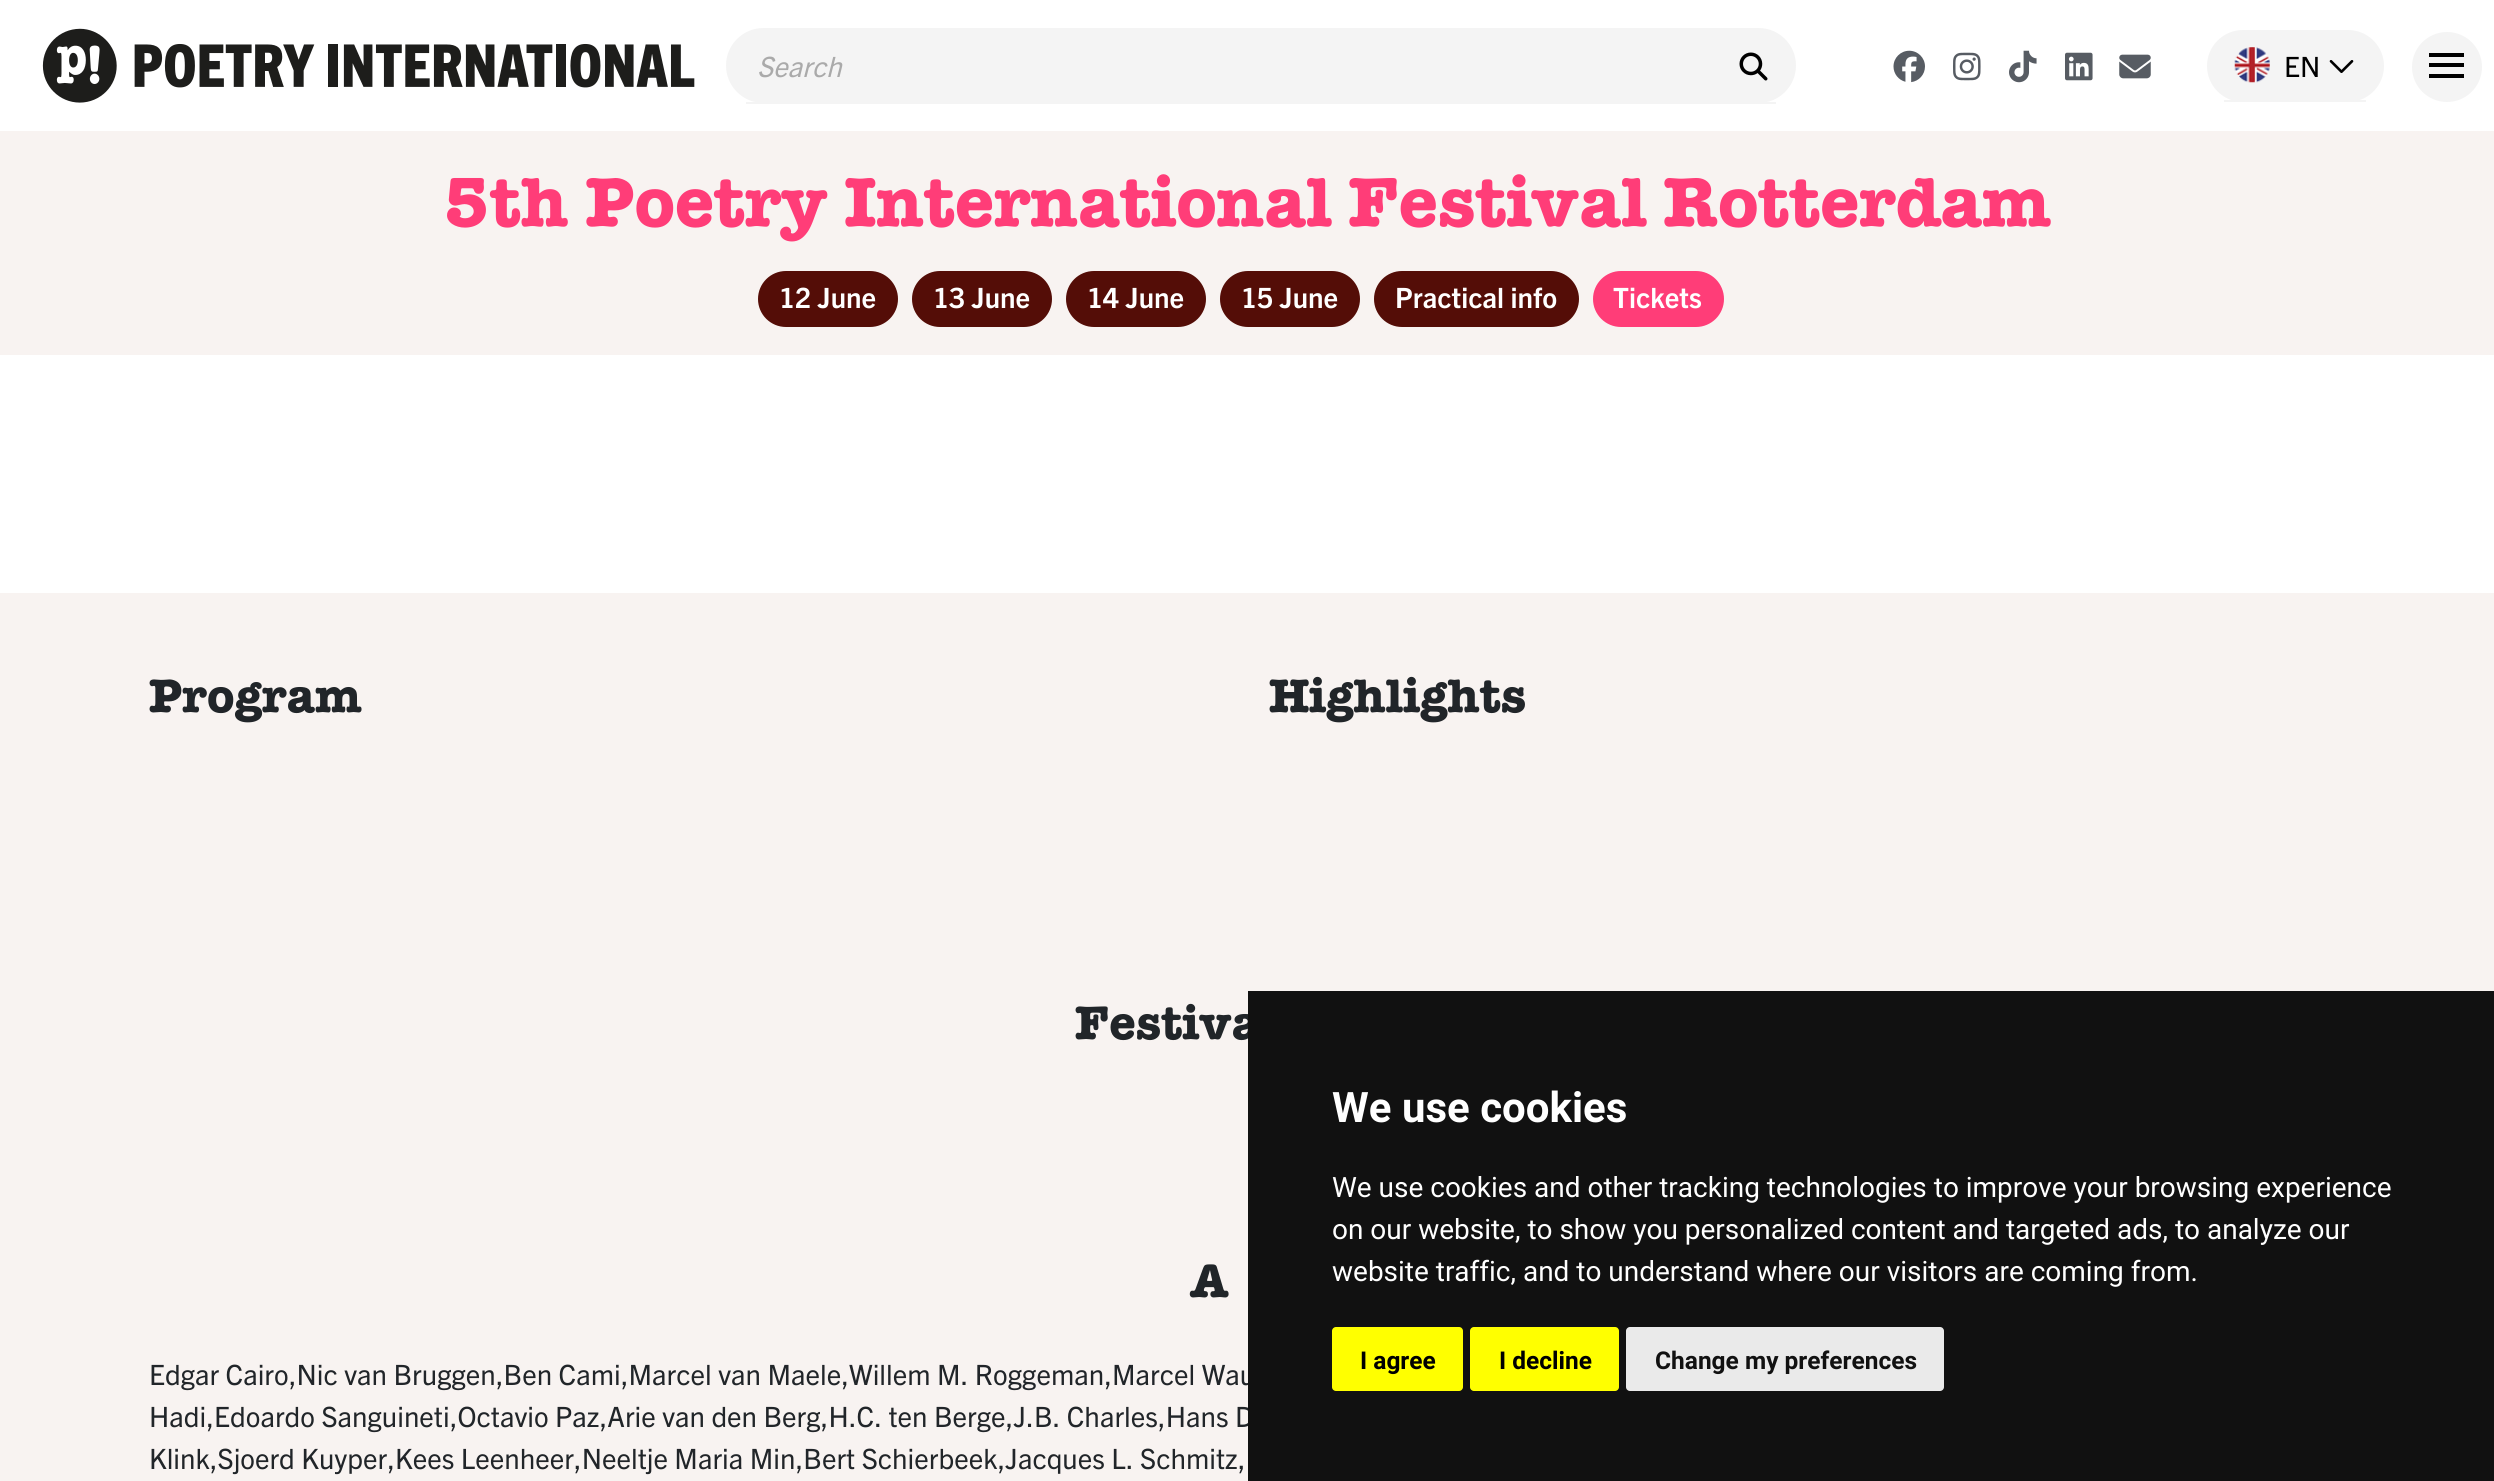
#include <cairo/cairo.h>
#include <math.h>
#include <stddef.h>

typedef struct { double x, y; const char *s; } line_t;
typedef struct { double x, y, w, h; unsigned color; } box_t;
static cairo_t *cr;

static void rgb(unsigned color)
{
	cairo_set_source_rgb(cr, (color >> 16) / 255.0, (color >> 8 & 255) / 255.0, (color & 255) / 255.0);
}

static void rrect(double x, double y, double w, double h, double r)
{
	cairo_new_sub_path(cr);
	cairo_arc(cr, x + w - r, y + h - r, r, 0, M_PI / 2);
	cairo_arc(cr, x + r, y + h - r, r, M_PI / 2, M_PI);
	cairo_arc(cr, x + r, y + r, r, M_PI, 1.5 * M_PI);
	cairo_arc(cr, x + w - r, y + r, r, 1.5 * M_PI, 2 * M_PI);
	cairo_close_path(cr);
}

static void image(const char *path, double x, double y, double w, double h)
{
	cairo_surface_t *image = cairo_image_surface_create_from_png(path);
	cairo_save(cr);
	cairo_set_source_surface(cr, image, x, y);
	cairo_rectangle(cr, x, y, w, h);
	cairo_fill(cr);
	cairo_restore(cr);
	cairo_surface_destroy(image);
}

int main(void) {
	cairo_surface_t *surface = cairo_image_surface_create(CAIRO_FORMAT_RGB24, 2494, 1481);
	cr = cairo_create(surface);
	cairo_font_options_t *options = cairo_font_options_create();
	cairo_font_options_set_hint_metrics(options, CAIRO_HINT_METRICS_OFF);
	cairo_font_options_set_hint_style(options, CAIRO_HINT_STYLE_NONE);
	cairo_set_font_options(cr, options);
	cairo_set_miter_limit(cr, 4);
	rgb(0xf8f3f1);
	cairo_paint(cr);
	rgb(0xffffff);
	cairo_rectangle(cr, 0, 0, 2494, 131);
	cairo_fill(cr);
	image("img/1.png", 42, 28, 653, 75);
	rgb(0xf4f4f4);
	rrect(726, 28, 1070, 75, 37.5);
	cairo_fill(cr);
	cairo_rectangle(cr, 746, 102, 1030, 2);
	cairo_fill(cr);
	image("img/2.png", 1739, 52, 29, 29);
	image("img/3.png", 1893, 50, 32, 33);
	image("img/4.png", 1953, 52, 28, 29);
	image("img/5.png", 2009, 50, 28, 33);
	image("img/6.png", 2065, 52, 28, 29);
	image("img/7.png", 2119, 54, 32, 25);
	rrect(2207, 30, 177, 72, 36);
	cairo_fill(cr);
	cairo_rectangle(cr, 2224, 100, 142, 2);
	cairo_fill(cr);
	image("img/8.png", 2234, 47, 36, 36);
	image("img/9.png", 2329, 60, 25, 13);
	cairo_arc(cr, 2447, 67, 35, 0, 2 * M_PI);
	cairo_fill(cr);
	{
		static const box_t items[] = {
			{2429, 53, 35, 4, 0x000000},
			{2429, 63, 35, 4, 0x000000},
			{2429, 74, 35, 4, 0x000000},
		};
		for (size_t i = 0; i < sizeof items / sizeof *items; i++) {
			rgb(items[i].color);
			cairo_rectangle(cr, items[i].x, items[i].y, items[i].w, items[i].h);
			cairo_fill(cr);
		}
	}
	rgb(0x540d07);
	rrect(759, 272, 138, 54, 27);
	cairo_fill_preserve(cr);
	cairo_stroke(cr);
	rrect(913, 272, 138, 54, 27);
	cairo_fill_preserve(cr);
	cairo_stroke(cr);
	rrect(1067, 272, 138, 54, 27);
	cairo_fill_preserve(cr);
	cairo_stroke(cr);
	rrect(1221, 272, 138, 54, 27);
	cairo_fill_preserve(cr);
	cairo_stroke(cr);
	rrect(1375, 272, 203, 54, 27);
	cairo_fill_preserve(cr);
	cairo_stroke(cr);
	rgb(0xff3d78);
	rrect(1594, 272, 129, 54, 27);
	cairo_fill_preserve(cr);
	cairo_stroke(cr);
	rgb(0xffffff);
	cairo_rectangle(cr, 0, 355, 2494, 238);
	cairo_fill(cr);
	cairo_select_font_face(cr, "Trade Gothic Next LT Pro", CAIRO_FONT_SLANT_ITALIC, CAIRO_FONT_WEIGHT_NORMAL);
	cairo_set_font_size(cr, 28);
	rgb(0xaaaaaa);
	cairo_move_to(cr, 757, 77);
	cairo_show_text(cr, "Search");
	cairo_select_font_face(cr, "Trade Gothic Next LT Pro", CAIRO_FONT_SLANT_NORMAL, CAIRO_FONT_WEIGHT_NORMAL);
	rgb(0x000000);
	cairo_move_to(cr, 2284, 77);
	cairo_show_text(cr, "EN");
	cairo_select_font_face(cr, "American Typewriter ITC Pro", CAIRO_FONT_SLANT_NORMAL, CAIRO_FONT_WEIGHT_BOLD);
	cairo_set_font_size(cr, 70);
	rgb(0xff3d78);
	cairo_move_to(cr, 444, 226);
	cairo_show_text(cr, "5th Poetry International Festival Rotterdam");
	cairo_select_font_face(cr, "Trade Gothic Next LT Pro", CAIRO_FONT_SLANT_NORMAL, CAIRO_FONT_WEIGHT_BOLD);
	cairo_set_font_size(cr, 28);
	rgb(0xffffff);
	{
		static const line_t items[] = {
			{779, 308, "12 June"},
			{933, 308, "13 June"},
			{1087, 308, "14 June"},
			{1241, 308, "15 June"},
			{1395, 308, "Practical info"},
			{1613, 308, "Tickets"},
		};
		for (size_t i = 0; i < sizeof items / sizeof *items; i++) {
			cairo_move_to(cr, items[i].x, items[i].y);
			cairo_show_text(cr, items[i].s);
		}
	}
	cairo_select_font_face(cr, "American Typewriter ITC Pro", CAIRO_FONT_SLANT_NORMAL, CAIRO_FONT_WEIGHT_BOLD);
	cairo_set_font_size(cr, 47.5);
	rgb(0x212529);
	{
		static const line_t items[] = {
			{149, 712, "Program"},
			{1269, 712, "Highlights"},
			{1075, 1039, "Festiva"},
			{1190, 1297, "A"},
		};
		for (size_t i = 0; i < sizeof items / sizeof *items; i++) {
			cairo_move_to(cr, items[i].x, items[i].y);
			cairo_show_text(cr, items[i].s);
		}
	}
	cairo_select_font_face(cr, "Trade Gothic Next LT Pro", CAIRO_FONT_SLANT_NORMAL, CAIRO_FONT_WEIGHT_NORMAL);
	cairo_set_font_size(cr, 28);
	{
		static const line_t items[] = {
			{149, 1385, "Edgar Cairo,Nic van Bruggen,Ben Cami,Marcel van Maele,Willem M. Roggeman,Marcel Wau"},
			{149, 1427, "Hadi,Edoardo Sanguineti,Octavio Paz,Arie van den Berg,H.C. ten Berge,J.B. Charles,Hans D"},
			{149, 1469, "Klink,Sjoerd Kuyper,Kees Leenheer,Neeltje Maria Min,Bert Schierbeek,Jacques L. Schmitz,"},
		};
		for (size_t i = 0; i < sizeof items / sizeof *items; i++) {
			cairo_move_to(cr, items[i].x, items[i].y);
			cairo_show_text(cr, items[i].s);
		}
	}
	rgb(0x111111);
	cairo_rectangle(cr, 1248, 991, 1246, 490);
	cairo_fill(cr);
	cairo_select_font_face(cr, "Roboto", CAIRO_FONT_SLANT_NORMAL, CAIRO_FONT_WEIGHT_BOLD);
	cairo_set_font_size(cr, 42);
	rgb(0xffffff);
	cairo_move_to(cr, 1332, 1122);
	cairo_show_text(cr, "We use cookies");
	cairo_select_font_face(cr, "Roboto", CAIRO_FONT_SLANT_NORMAL, CAIRO_FONT_WEIGHT_NORMAL);
	cairo_set_font_size(cr, 28);
	{
		static const line_t items[] = {
			{1332, 1197, "We use cookies and other tracking technologies to improve your browsing experience"},
			{1332, 1239, "on our website, to show you personalized content and targeted ads, to analyze our"},
			{1332, 1281, "website traffic, and to understand where our visitors are coming from."},
		};
		for (size_t i = 0; i < sizeof items / sizeof *items; i++) {
			cairo_move_to(cr, items[i].x, items[i].y);
			cairo_show_text(cr, items[i].s);
		}
	}
	rgb(0xffff00);
	rrect(1332, 1327, 131, 64, 4);
	cairo_fill(cr);
	cairo_select_font_face(cr, "Roboto", CAIRO_FONT_SLANT_NORMAL, CAIRO_FONT_WEIGHT_BOLD);
	cairo_set_font_size(cr, 24.5);
	rgb(0x000000);
	cairo_move_to(cr, 1360, 1369);
	cairo_show_text(cr, "I agree");
	rgb(0xffff00);
	rrect(1470, 1327, 149, 64, 4);
	cairo_fill(cr);
	rgb(0x000000);
	cairo_move_to(cr, 1499, 1369);
	cairo_show_text(cr, "I decline");
	rgb(0xeaeaea);
	rrect(1626, 1327, 318, 64, 4);
	cairo_fill(cr);
	rgb(0x111111);
	cairo_move_to(cr, 1655, 1369);
	cairo_show_text(cr, "Change my preferences");
	cairo_surface_write_to_png(surface, "page.png");
	cairo_font_options_destroy(options);
	cairo_destroy(cr);
	cairo_surface_destroy(surface);
	return 0;
}
